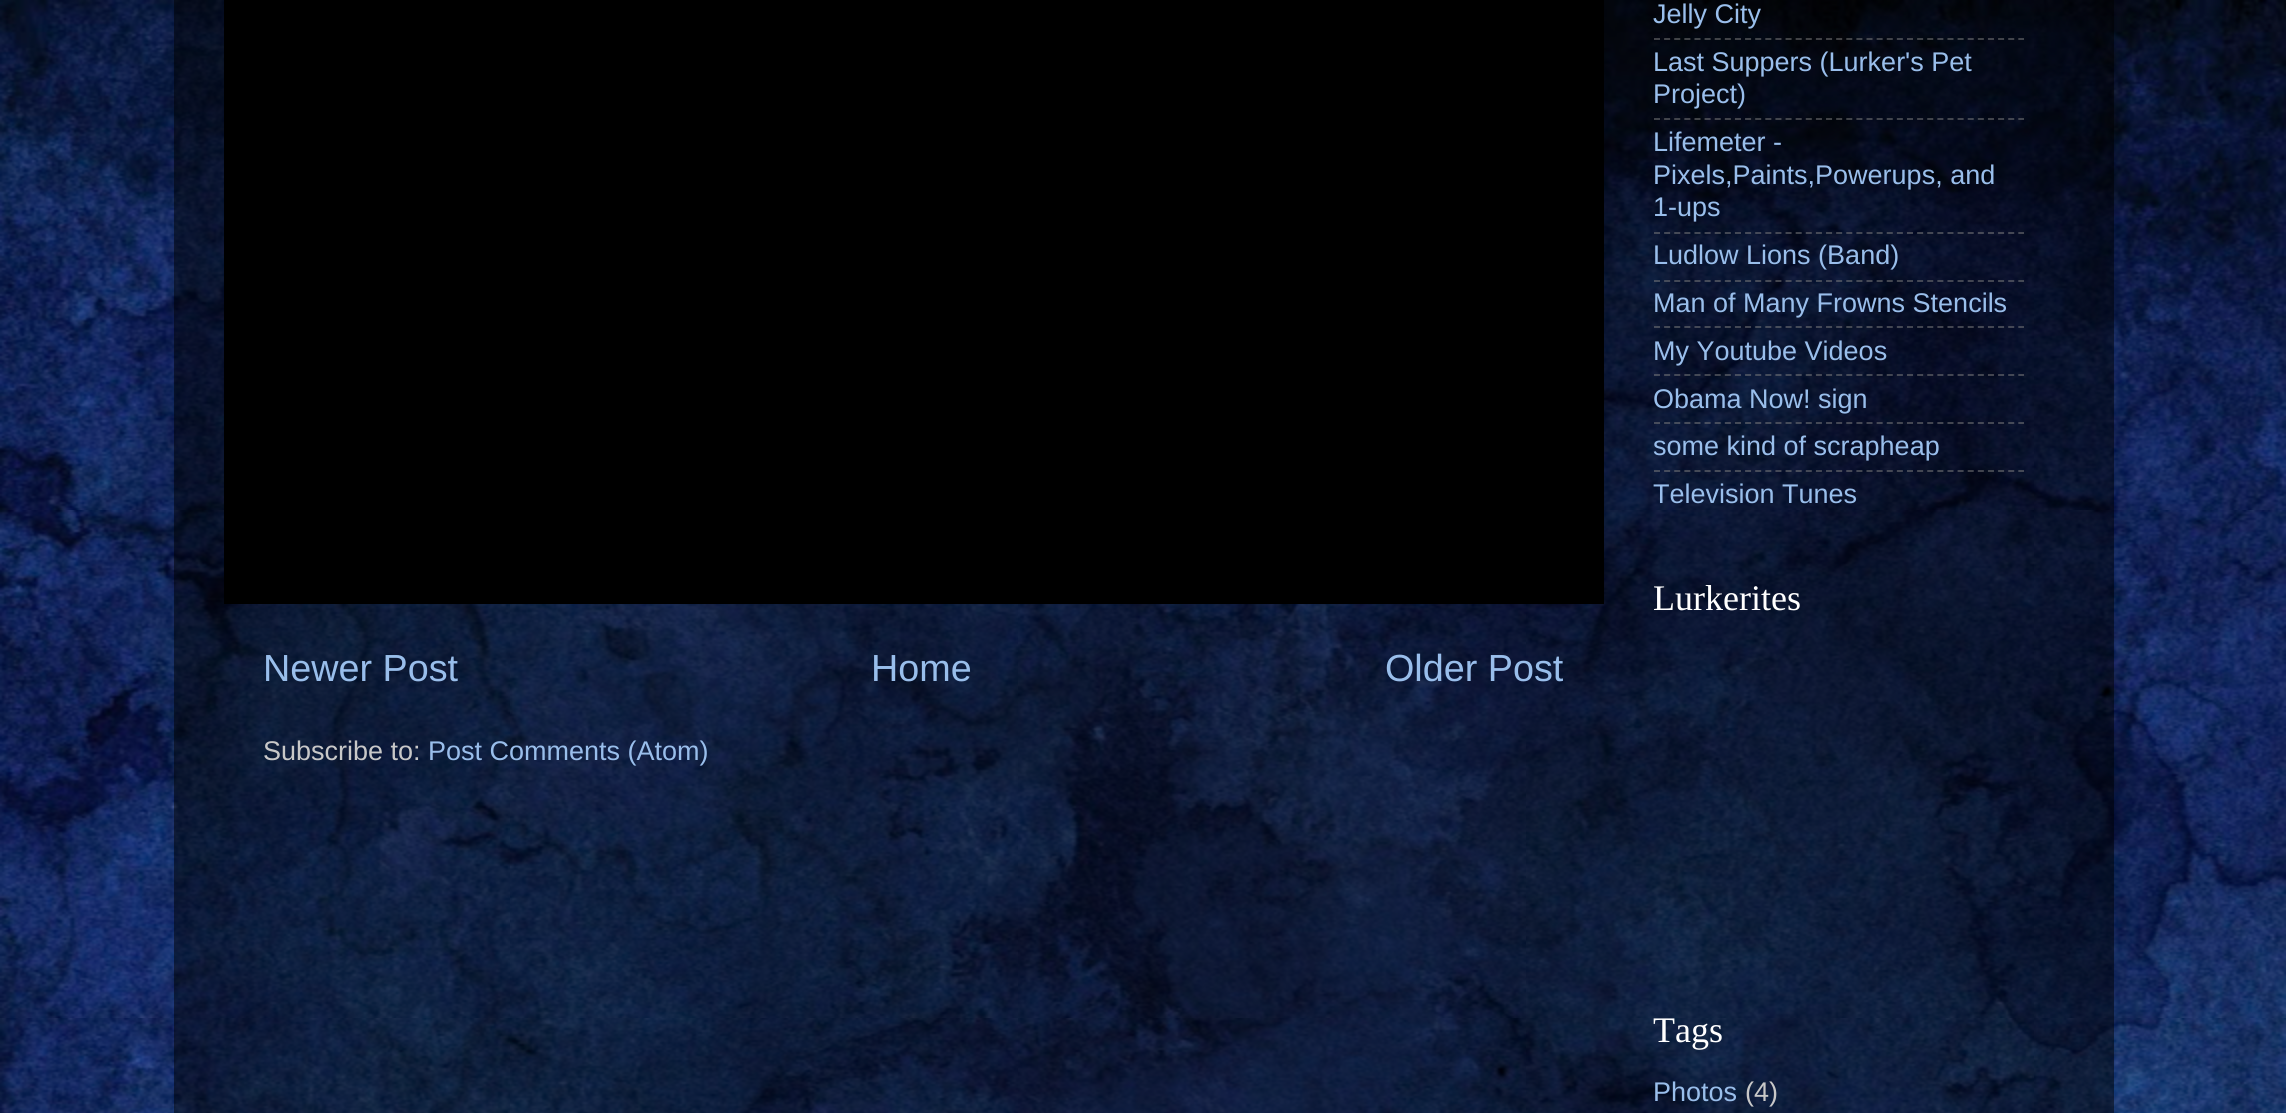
#include <cairo/cairo.h>
#include <math.h>
#include <stddef.h>

typedef struct { double x, y; const char *s; } line_t;
static cairo_t *cr;

static void rgb(unsigned color)
{
	cairo_set_source_rgb(cr, (color >> 16) / 255.0, (color >> 8 & 255) / 255.0, (color & 255) / 255.0);
}

static void image(const char *path, double x, double y, double w, double h)
{
	cairo_surface_t *image = cairo_image_surface_create_from_png(path);
	cairo_save(cr);
	cairo_set_source_surface(cr, image, x, y);
	cairo_rectangle(cr, x, y, w, h);
	cairo_fill(cr);
	cairo_restore(cr);
	cairo_surface_destroy(image);
}

int main(void) {
	cairo_surface_t *surface = cairo_image_surface_create(CAIRO_FORMAT_RGB24, 2286, 1113);
	cr = cairo_create(surface);
	cairo_font_options_t *options = cairo_font_options_create();
	cairo_font_options_set_hint_metrics(options, CAIRO_HINT_METRICS_OFF);
	cairo_font_options_set_hint_style(options, CAIRO_HINT_STYLE_NONE);
	cairo_set_font_options(cr, options);
	cairo_set_miter_limit(cr, 4);
	rgb(0xffffff);
	cairo_paint(cr);
	image("img/1.png", 0, 0, 2286, 1113);
	cairo_set_source_rgba(cr, 0, 0, 0, 0.5);
	cairo_rectangle(cr, 174, 0, 1940, 1113);
	cairo_fill(cr);
	rgb(0x000000);
	cairo_rectangle(cr, 224, 0, 1380, 604);
	cairo_fill(cr);
	cairo_new_path(cr);
	cairo_move_to(cr, 1654, 39);
	cairo_line_to(cr, 2024, 39);
	cairo_set_source_rgba(cr, 0.502, 0.502, 0.502, 0.5);
	cairo_set_dash(cr, (double[]){6, 4.12}, 2, 0);
	cairo_stroke(cr);
	cairo_new_path(cr);
	cairo_move_to(cr, 1654, 119);
	cairo_line_to(cr, 2024, 119);
	cairo_stroke(cr);
	cairo_new_path(cr);
	cairo_move_to(cr, 1654, 233);
	cairo_line_to(cr, 2024, 233);
	cairo_stroke(cr);
	cairo_new_path(cr);
	cairo_move_to(cr, 1654, 281);
	cairo_line_to(cr, 2024, 281);
	cairo_stroke(cr);
	cairo_new_path(cr);
	cairo_move_to(cr, 1654, 327);
	cairo_line_to(cr, 2024, 327);
	cairo_stroke(cr);
	cairo_new_path(cr);
	cairo_move_to(cr, 1654, 375);
	cairo_line_to(cr, 2024, 375);
	cairo_stroke(cr);
	cairo_new_path(cr);
	cairo_move_to(cr, 1654, 423);
	cairo_line_to(cr, 2024, 423);
	cairo_stroke(cr);
	cairo_new_path(cr);
	cairo_move_to(cr, 1654, 471);
	cairo_line_to(cr, 2024, 471);
	cairo_stroke(cr);
	cairo_select_font_face(cr, "Liberation Sans", CAIRO_FONT_SLANT_NORMAL, CAIRO_FONT_WEIGHT_NORMAL);
	cairo_set_font_size(cr, 37.75);
	rgb(0x99beeb);
	{
		static const line_t items[] = {
			{263, 681, "Newer Post"},
			{871, 681, "Home"},
			{1385, 681, "Older Post"},
		};
		for (size_t i = 0; i < sizeof items / sizeof *items; i++) {
			cairo_move_to(cr, items[i].x, items[i].y);
			cairo_show_text(cr, items[i].s);
		}
	}
	cairo_set_font_size(cr, 27);
	rgb(0xc8c8c8);
	cairo_move_to(cr, 263, 760);
	cairo_show_text(cr, "Subscribe to:");
	rgb(0x99beeb);
	{
		static const line_t items[] = {
			{428, 760, "Post Comments (Atom)"},
			{1653, 23, "Jelly City"},
			{1653, 71, "Last Suppers (Lurker's Pet"},
			{1653, 103, "Project)"},
			{1653, 151, "Lifemeter -"},
			{1653, 184, "Pixels,Paints,Powerups, and"},
			{1653, 216, "1-ups"},
			{1653, 264, "Ludlow Lions (Band)"},
			{1653, 312, "Man of Many Frowns Stencils"},
			{1653, 360, "My Youtube Videos"},
			{1653, 408, "Obama Now! sign"},
			{1653, 455, "some kind of scrapheap"},
			{1653, 503, "Television Tunes"},
		};
		for (size_t i = 0; i < sizeof items / sizeof *items; i++) {
			cairo_move_to(cr, items[i].x, items[i].y);
			cairo_show_text(cr, items[i].s);
		}
	}
	cairo_select_font_face(cr, "Liberation Serif", CAIRO_FONT_SLANT_NORMAL, CAIRO_FONT_WEIGHT_NORMAL);
	cairo_set_font_size(cr, 36);
	rgb(0xffffff);
	cairo_move_to(cr, 1653, 610);
	cairo_show_text(cr, "Lurkerites");
	cairo_move_to(cr, 1653, 1042);
	cairo_show_text(cr, "Tags");
	cairo_select_font_face(cr, "Liberation Sans", CAIRO_FONT_SLANT_NORMAL, CAIRO_FONT_WEIGHT_NORMAL);
	cairo_set_font_size(cr, 27);
	rgb(0x99beeb);
	cairo_move_to(cr, 1653, 1101);
	cairo_show_text(cr, "Photos");
	rgb(0xc8c8c8);
	cairo_move_to(cr, 1745, 1101);
	cairo_show_text(cr, "(4)");
	cairo_surface_write_to_png(surface, "page.png");
	cairo_font_options_destroy(options);
	cairo_destroy(cr);
	cairo_surface_destroy(surface);
	return 0;
}
